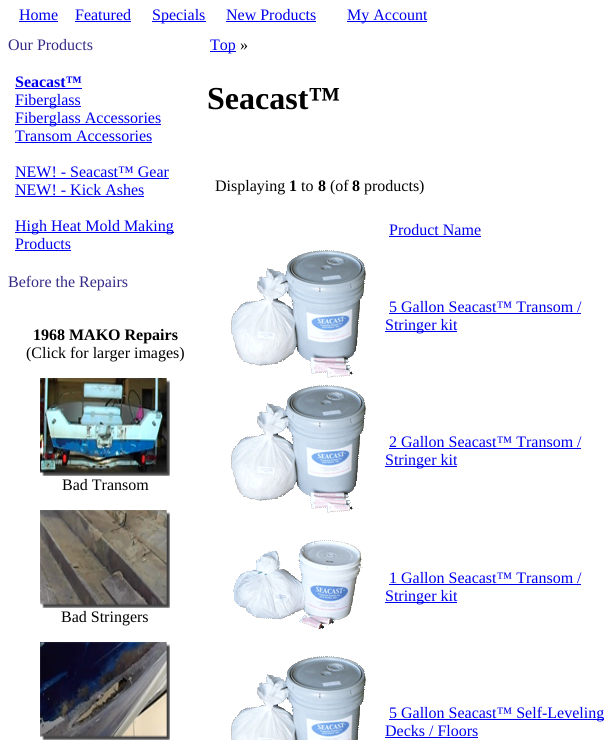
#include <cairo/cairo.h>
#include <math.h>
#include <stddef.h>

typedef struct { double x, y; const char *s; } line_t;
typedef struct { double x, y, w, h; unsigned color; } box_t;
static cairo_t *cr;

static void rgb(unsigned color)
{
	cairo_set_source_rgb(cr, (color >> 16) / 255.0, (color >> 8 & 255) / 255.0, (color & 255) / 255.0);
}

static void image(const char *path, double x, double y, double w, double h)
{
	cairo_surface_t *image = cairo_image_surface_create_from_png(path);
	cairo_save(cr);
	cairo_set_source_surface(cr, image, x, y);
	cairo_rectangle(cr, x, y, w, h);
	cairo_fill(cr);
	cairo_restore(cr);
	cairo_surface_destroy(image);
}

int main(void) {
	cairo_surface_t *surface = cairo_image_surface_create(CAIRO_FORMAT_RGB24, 605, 740);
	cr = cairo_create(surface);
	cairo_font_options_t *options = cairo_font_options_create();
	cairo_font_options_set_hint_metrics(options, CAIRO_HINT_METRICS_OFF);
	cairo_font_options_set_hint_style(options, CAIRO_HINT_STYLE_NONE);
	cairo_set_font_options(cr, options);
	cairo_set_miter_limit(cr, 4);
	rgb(0xffffff);
	cairo_paint(cr);
	{
		static const box_t items[] = {
			{19, 21, 39, 1, 0x0000ee},
			{75, 21, 56, 1, 0x0000ee},
			{152, 21, 54, 1, 0x0000ee},
			{226, 21, 90, 1, 0x0000ee},
			{347, 21, 80, 1, 0x0000ee},
			{15, 88, 67, 1, 0x0000ee},
			{15, 106, 66, 1, 0x0000ee},
			{15, 124, 146, 1, 0x0000ee},
			{15, 142, 137, 1, 0x0000ee},
			{15, 178, 154, 1, 0x0000ee},
			{15, 196, 129, 1, 0x0000ee},
			{15, 232, 159, 1, 0x0000ee},
			{15, 250, 56, 1, 0x0000ee},
		};
		for (size_t i = 0; i < sizeof items / sizeof *items; i++) {
			rgb(items[i].color);
			cairo_rectangle(cr, items[i].x, items[i].y, items[i].w, items[i].h);
			cairo_fill(cr);
		}
	}
	image("img/1.png", 40, 378, 130, 98);
	image("img/2.png", 40, 510, 130, 98);
	image("img/3.png", 40, 642, 130, 98);
	cairo_rectangle(cr, 210, 51, 26, 1);
	cairo_fill(cr);
	cairo_rectangle(cr, 389, 236, 92, 1);
	cairo_fill(cr);
	image("img/4.png", 231, 250, 135, 128);
	cairo_rectangle(cr, 389, 313, 192, 1);
	cairo_fill(cr);
	cairo_rectangle(cr, 385, 331, 72, 1);
	cairo_fill(cr);
	image("img/4.png", 231, 385, 135, 128);
	cairo_rectangle(cr, 389, 448, 192, 1);
	cairo_fill(cr);
	cairo_rectangle(cr, 385, 466, 72, 1);
	cairo_fill(cr);
	image("img/5.png", 233, 540, 130, 90);
	cairo_rectangle(cr, 389, 584, 192, 1);
	cairo_fill(cr);
	cairo_rectangle(cr, 385, 602, 72, 1);
	cairo_fill(cr);
	image("img/6.png", 231, 656, 135, 84);
	cairo_rectangle(cr, 389, 719, 215, 1);
	cairo_fill(cr);
	cairo_rectangle(cr, 385, 737, 93, 1);
	cairo_fill(cr);
	cairo_select_font_face(cr, "Liberation Serif", CAIRO_FONT_SLANT_NORMAL, CAIRO_FONT_WEIGHT_NORMAL);
	cairo_set_font_size(cr, 16);
	{
		static const line_t items[] = {
			{19, 20, "Home"},
			{75, 20, "Featured"},
			{152, 20, "Specials"},
			{226, 20, "New Products"},
			{347, 20, "My Account"},
		};
		for (size_t i = 0; i < sizeof items / sizeof *items; i++) {
			cairo_move_to(cr, items[i].x, items[i].y);
			cairo_show_text(cr, items[i].s);
		}
	}
	rgb(0x332a86);
	cairo_move_to(cr, 8, 50);
	cairo_show_text(cr, "Our Products");
	cairo_select_font_face(cr, "Liberation Serif", CAIRO_FONT_SLANT_NORMAL, CAIRO_FONT_WEIGHT_BOLD);
	rgb(0x0000ee);
	cairo_move_to(cr, 15, 87);
	cairo_show_text(cr, "Seacast™");
	cairo_select_font_face(cr, "Liberation Serif", CAIRO_FONT_SLANT_NORMAL, CAIRO_FONT_WEIGHT_NORMAL);
	{
		static const line_t items[] = {
			{15, 105, "Fiberglass"},
			{15, 123, "Fiberglass Accessories"},
			{15, 141, "Transom Accessories"},
			{15, 177, "NEW! - Seacast™ Gear"},
			{15, 195, "NEW! - Kick Ashes"},
			{15, 231, "High Heat Mold Making"},
			{15, 249, "Products"},
		};
		for (size_t i = 0; i < sizeof items / sizeof *items; i++) {
			cairo_move_to(cr, items[i].x, items[i].y);
			cairo_show_text(cr, items[i].s);
		}
	}
	rgb(0x332a86);
	cairo_move_to(cr, 8, 287);
	cairo_show_text(cr, "Before the Repairs");
	cairo_select_font_face(cr, "Liberation Serif", CAIRO_FONT_SLANT_NORMAL, CAIRO_FONT_WEIGHT_BOLD);
	rgb(0x000000);
	cairo_move_to(cr, 33, 340);
	cairo_show_text(cr, "1968 MAKO Repairs");
	cairo_select_font_face(cr, "Liberation Serif", CAIRO_FONT_SLANT_NORMAL, CAIRO_FONT_WEIGHT_NORMAL);
	{
		static const line_t items[] = {
			{26, 358, "(Click for larger images)"},
			{62, 490, "Bad Transom"},
			{61, 622, "Bad Stringers"},
		};
		for (size_t i = 0; i < sizeof items / sizeof *items; i++) {
			cairo_move_to(cr, items[i].x, items[i].y);
			cairo_show_text(cr, items[i].s);
		}
	}
	rgb(0x0000ee);
	cairo_move_to(cr, 210, 50);
	cairo_show_text(cr, "Top");
	rgb(0x000000);
	cairo_move_to(cr, 240, 50);
	cairo_show_text(cr, "»");
	cairo_select_font_face(cr, "Liberation Serif", CAIRO_FONT_SLANT_NORMAL, CAIRO_FONT_WEIGHT_BOLD);
	cairo_set_font_size(cr, 32);
	cairo_move_to(cr, 207, 109);
	cairo_show_text(cr, "Seacast™");
	cairo_select_font_face(cr, "Liberation Serif", CAIRO_FONT_SLANT_NORMAL, CAIRO_FONT_WEIGHT_NORMAL);
	cairo_set_font_size(cr, 16);
	cairo_move_to(cr, 215, 191);
	cairo_show_text(cr, "Displaying");
	cairo_select_font_face(cr, "Liberation Serif", CAIRO_FONT_SLANT_NORMAL, CAIRO_FONT_WEIGHT_BOLD);
	cairo_move_to(cr, 289, 191);
	cairo_show_text(cr, "1");
	cairo_select_font_face(cr, "Liberation Serif", CAIRO_FONT_SLANT_NORMAL, CAIRO_FONT_WEIGHT_NORMAL);
	cairo_move_to(cr, 301, 191);
	cairo_show_text(cr, "to");
	cairo_select_font_face(cr, "Liberation Serif", CAIRO_FONT_SLANT_NORMAL, CAIRO_FONT_WEIGHT_BOLD);
	cairo_move_to(cr, 318, 191);
	cairo_show_text(cr, "8");
	cairo_select_font_face(cr, "Liberation Serif", CAIRO_FONT_SLANT_NORMAL, CAIRO_FONT_WEIGHT_NORMAL);
	cairo_move_to(cr, 330, 191);
	cairo_show_text(cr, "(of");
	cairo_select_font_face(cr, "Liberation Serif", CAIRO_FONT_SLANT_NORMAL, CAIRO_FONT_WEIGHT_BOLD);
	cairo_move_to(cr, 352, 191);
	cairo_show_text(cr, "8");
	cairo_select_font_face(cr, "Liberation Serif", CAIRO_FONT_SLANT_NORMAL, CAIRO_FONT_WEIGHT_NORMAL);
	cairo_move_to(cr, 364, 191);
	cairo_show_text(cr, "products)");
	rgb(0x0000ee);
	{
		static const line_t items[] = {
			{389, 235, "Product Name"},
			{389, 312, "5 Gallon Seacast™ Transom /"},
			{385, 330, "Stringer kit"},
			{389, 447, "2 Gallon Seacast™ Transom /"},
			{385, 465, "Stringer kit"},
			{389, 583, "1 Gallon Seacast™ Transom /"},
			{385, 601, "Stringer kit"},
			{389, 718, "5 Gallon Seacast™ Self-Leveling"},
			{385, 736, "Decks / Floors"},
		};
		for (size_t i = 0; i < sizeof items / sizeof *items; i++) {
			cairo_move_to(cr, items[i].x, items[i].y);
			cairo_show_text(cr, items[i].s);
		}
	}
	cairo_surface_write_to_png(surface, "page.png");
	cairo_font_options_destroy(options);
	cairo_destroy(cr);
	cairo_surface_destroy(surface);
	return 0;
}
